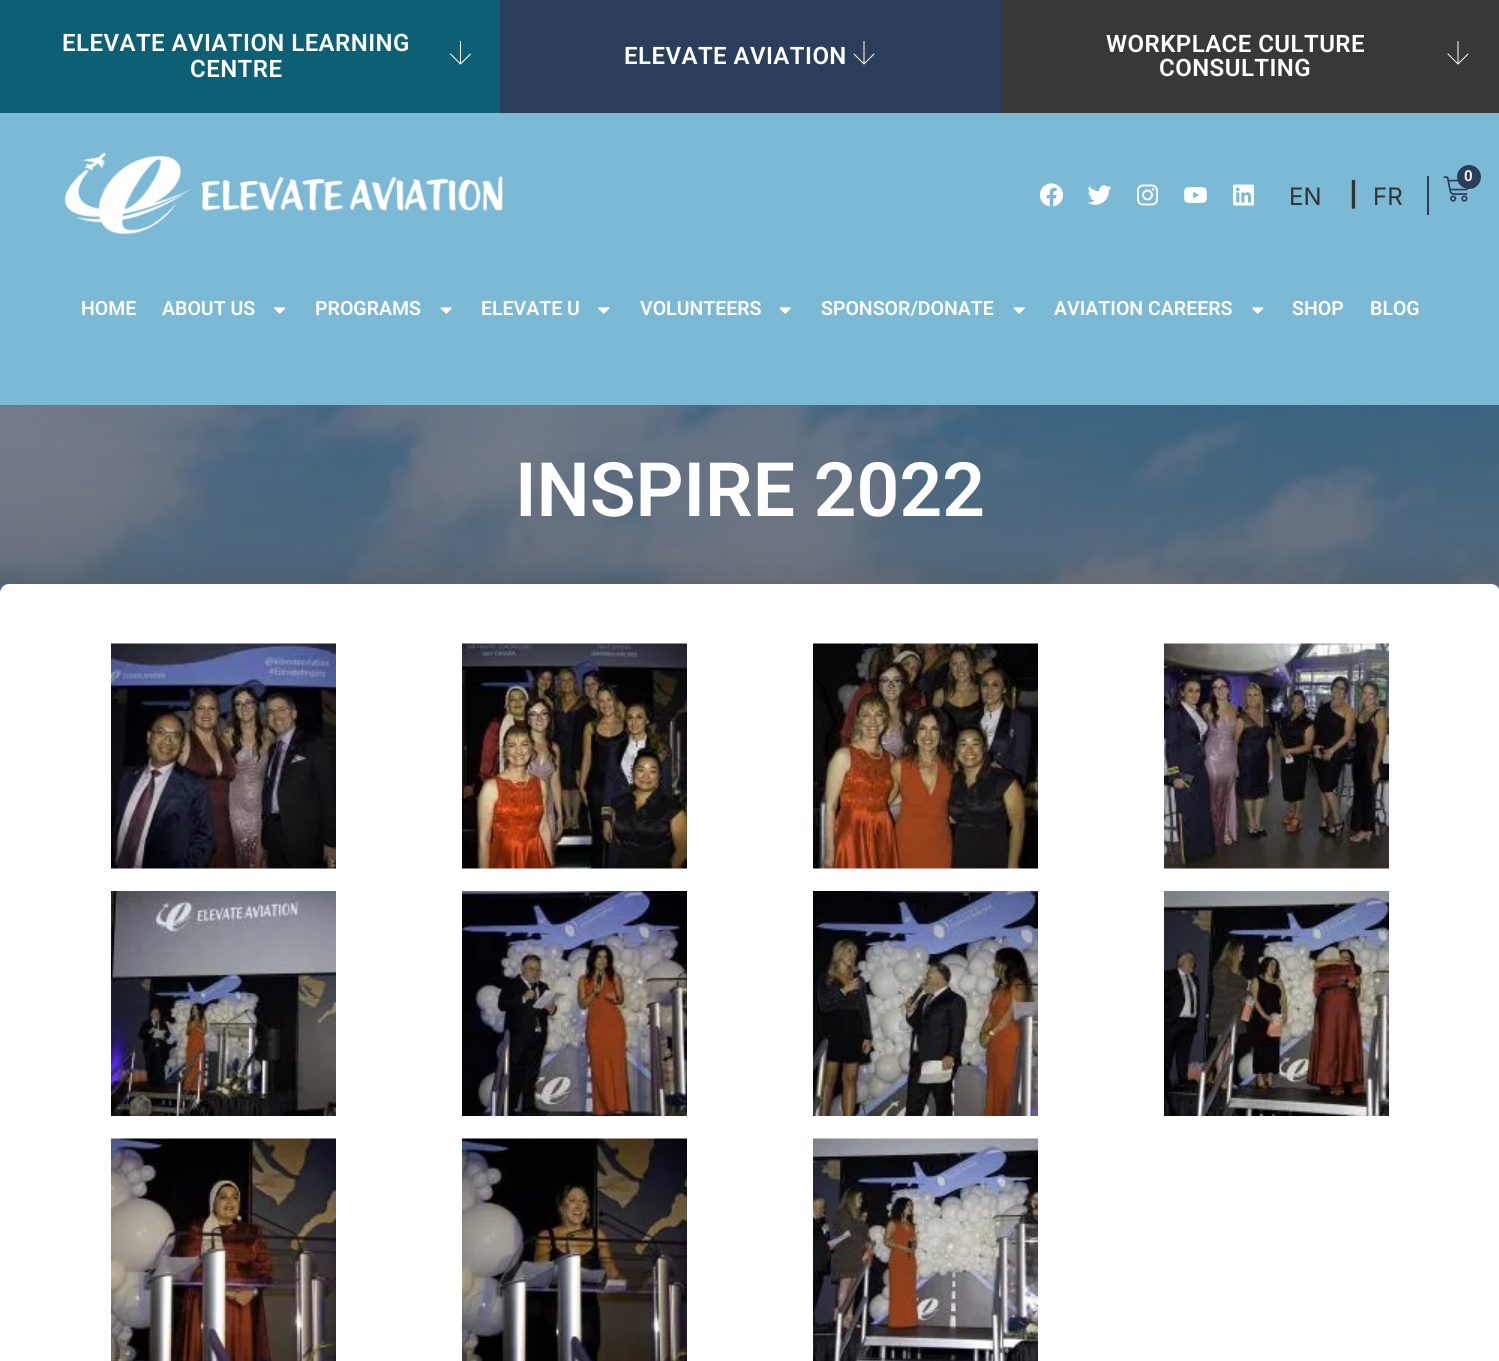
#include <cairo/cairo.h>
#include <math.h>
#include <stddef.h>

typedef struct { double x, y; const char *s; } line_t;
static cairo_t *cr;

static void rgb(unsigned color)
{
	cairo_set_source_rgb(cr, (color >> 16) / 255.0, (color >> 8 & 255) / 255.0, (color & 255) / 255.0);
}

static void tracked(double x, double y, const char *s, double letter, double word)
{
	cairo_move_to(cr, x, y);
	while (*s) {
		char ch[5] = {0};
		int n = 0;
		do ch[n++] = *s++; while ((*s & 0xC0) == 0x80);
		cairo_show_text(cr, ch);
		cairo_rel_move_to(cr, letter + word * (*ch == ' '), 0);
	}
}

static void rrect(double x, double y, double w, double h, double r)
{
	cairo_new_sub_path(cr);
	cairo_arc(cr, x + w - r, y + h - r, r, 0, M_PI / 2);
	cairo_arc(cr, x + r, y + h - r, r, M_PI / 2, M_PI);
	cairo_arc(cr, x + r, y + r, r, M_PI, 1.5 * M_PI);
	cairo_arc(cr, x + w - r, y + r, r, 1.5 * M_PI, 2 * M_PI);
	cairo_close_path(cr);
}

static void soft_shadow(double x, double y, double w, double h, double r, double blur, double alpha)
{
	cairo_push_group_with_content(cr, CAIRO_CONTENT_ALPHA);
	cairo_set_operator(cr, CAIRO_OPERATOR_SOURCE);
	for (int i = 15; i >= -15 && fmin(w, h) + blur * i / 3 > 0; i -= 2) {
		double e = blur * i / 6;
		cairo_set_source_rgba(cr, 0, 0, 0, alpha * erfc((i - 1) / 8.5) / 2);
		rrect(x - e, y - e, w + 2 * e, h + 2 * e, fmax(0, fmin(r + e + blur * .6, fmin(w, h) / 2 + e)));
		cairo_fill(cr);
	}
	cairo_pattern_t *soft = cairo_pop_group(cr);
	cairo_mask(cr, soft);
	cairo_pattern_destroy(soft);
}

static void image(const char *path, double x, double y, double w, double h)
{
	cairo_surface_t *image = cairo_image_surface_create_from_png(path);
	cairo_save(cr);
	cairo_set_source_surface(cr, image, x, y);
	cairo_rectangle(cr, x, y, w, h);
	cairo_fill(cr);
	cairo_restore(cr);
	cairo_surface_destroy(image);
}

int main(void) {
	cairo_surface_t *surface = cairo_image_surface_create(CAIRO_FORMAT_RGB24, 1499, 1361);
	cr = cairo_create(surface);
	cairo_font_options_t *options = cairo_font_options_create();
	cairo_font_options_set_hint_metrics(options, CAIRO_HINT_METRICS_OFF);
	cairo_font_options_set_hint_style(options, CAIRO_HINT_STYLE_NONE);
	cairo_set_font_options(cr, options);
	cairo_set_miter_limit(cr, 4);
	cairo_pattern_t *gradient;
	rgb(0xffffff);
	cairo_paint(cr);
	rgb(0x0d5f74);
	cairo_rectangle(cr, 0, 0, 500, 113);
	cairo_fill(cr);
	image("img/1.png", 450, 41, 21, 24);
	rgb(0x2a3d5a);
	cairo_rectangle(cr, 500, 0, 501, 113);
	cairo_fill(cr);
	image("img/2.png", 853, 41, 22, 24);
	rgb(0x383838);
	cairo_rectangle(cr, 1001, 0, 498, 113);
	cairo_fill(cr);
	image("img/3.png", 1447, 41, 22, 24);
	rgb(0x7bb9d5);
	cairo_rectangle(cr, 0, 113, 1499, 292);
	cairo_fill(cr);
	image("img/4.png", 64, 152, 439, 83);
	rgb(0x2a3d5a);
	cairo_rectangle(cr, 1427, 176, 2, 39);
	cairo_fill(cr);
	image("img/5.png", 1443, 176, 26, 26);
	cairo_arc(cr, 1469, 177, 12, 0, 2 * M_PI);
	cairo_fill(cr);
	image("img/6.png", 1040, 183, 24, 24);
	image("img/7.png", 1088, 185, 24, 20);
	image("img/8.png", 1137, 184, 21, 22);
	image("img/9.png", 1184, 187, 23, 16);
	image("img/10.png", 1233, 184, 21, 22);
	image("img/11.png", 274, 307, 12, 7);
	image("img/12.png", 440, 307, 12, 7);
	image("img/11.png", 598, 307, 12, 7);
	image("img/12.png", 779, 307, 12, 7);
	image("img/12.png", 1013, 307, 12, 7);
	image("img/11.png", 1252, 307, 12, 7);
	image("img/13.png", 0, 405, 1499, 188);
	gradient = cairo_pattern_create_linear(750, 273, 750, 959);
	cairo_pattern_add_color_stop_rgba(gradient, 0, 0.165, 0.239, 0.353, 0.5);
	cairo_pattern_add_color_stop_rgba(gradient, 1, 0, 0, 0, 0.5);
	cairo_set_source(cr, gradient);
	cairo_pattern_destroy(gradient);
	cairo_rectangle(cr, 0, 405, 1499, 188);
	cairo_fill(cr);
	rgb(0x000000);
	soft_shadow(0, 584, 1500, 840, 9, 22.5, 0.13);
	rgb(0xffffff);
	rrect(0, 584, 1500, 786, 9);
	cairo_fill(cr);
	image("img/14.png", 111, 643, 225, 226);
	image("img/15.png", 462, 643, 225, 226);
	image("img/16.png", 813, 643, 225, 226);
	image("img/17.png", 1164, 643, 225, 226);
	image("img/18.png", 111, 891, 225, 225);
	image("img/19.png", 462, 891, 225, 225);
	image("img/20.png", 813, 891, 225, 225);
	image("img/21.png", 1164, 891, 225, 225);
	image("img/22.png", 111, 1138, 225, 223);
	image("img/23.png", 462, 1138, 225, 223);
	image("img/24.png", 813, 1138, 225, 223);
	cairo_select_font_face(cr, "Roboto SemiBold", CAIRO_FONT_SLANT_NORMAL, CAIRO_FONT_WEIGHT_NORMAL);
	cairo_set_font_size(cr, 24);
	{
		static const line_t items[] = {
			{62, 51, "ELEVATE AVIATION LEARNING"},
			{190, 77, "CENTRE"},
			{624, 64, "ELEVATE AVIATION"},
			{1106, 52, "WORKPLACE CULTURE"},
			{1159, 76, "CONSULTING"},
		};
		for (size_t i = 0; i < sizeof items / sizeof *items; i++) {
			tracked(items[i].x, items[i].y, items[i].s, 0.45, 0);
		}
	}
	cairo_set_font_size(cr, 15);
	cairo_move_to(cr, 1464, 181);
	cairo_show_text(cr, "0");
	cairo_select_font_face(cr, "Inter", CAIRO_FONT_SLANT_NORMAL, CAIRO_FONT_WEIGHT_NORMAL);
	cairo_set_font_size(cr, 24);
	rgb(0x333333);
	cairo_move_to(cr, 1289, 205);
	cairo_show_text(cr, "EN");
	cairo_select_font_face(cr, "Inter", CAIRO_FONT_SLANT_NORMAL, CAIRO_FONT_WEIGHT_BOLD);
	cairo_move_to(cr, 1349, 203);
	cairo_show_text(cr, "|");
	cairo_select_font_face(cr, "Inter", CAIRO_FONT_SLANT_NORMAL, CAIRO_FONT_WEIGHT_NORMAL);
	cairo_move_to(cr, 1373, 205);
	cairo_show_text(cr, "FR");
	cairo_select_font_face(cr, "Roboto SemiBold", CAIRO_FONT_SLANT_NORMAL, CAIRO_FONT_WEIGHT_NORMAL);
	cairo_set_font_size(cr, 19.5);
	rgb(0xffffff);
	{
		static const line_t items[] = {
			{81, 315, "HOME"},
			{162, 315, "ABOUT US"},
			{315, 315, "PROGRAMS"},
			{481, 315, "ELEVATE U"},
			{640, 315, "VOLUNTEERS"},
			{821, 315, "SPONSOR/DONATE"},
			{1054, 315, "AVIATION CAREERS"},
			{1292, 315, "SHOP"},
			{1370, 315, "BLOG"},
		};
		for (size_t i = 0; i < sizeof items / sizeof *items; i++) {
			cairo_move_to(cr, items[i].x, items[i].y);
			cairo_show_text(cr, items[i].s);
		}
	}
	cairo_set_font_size(cr, 75);
	cairo_move_to(cr, 515, 516);
	cairo_show_text(cr, "INSPIRE 2022");
	cairo_surface_write_to_png(surface, "page.png");
	cairo_font_options_destroy(options);
	cairo_destroy(cr);
	cairo_surface_destroy(surface);
	return 0;
}
